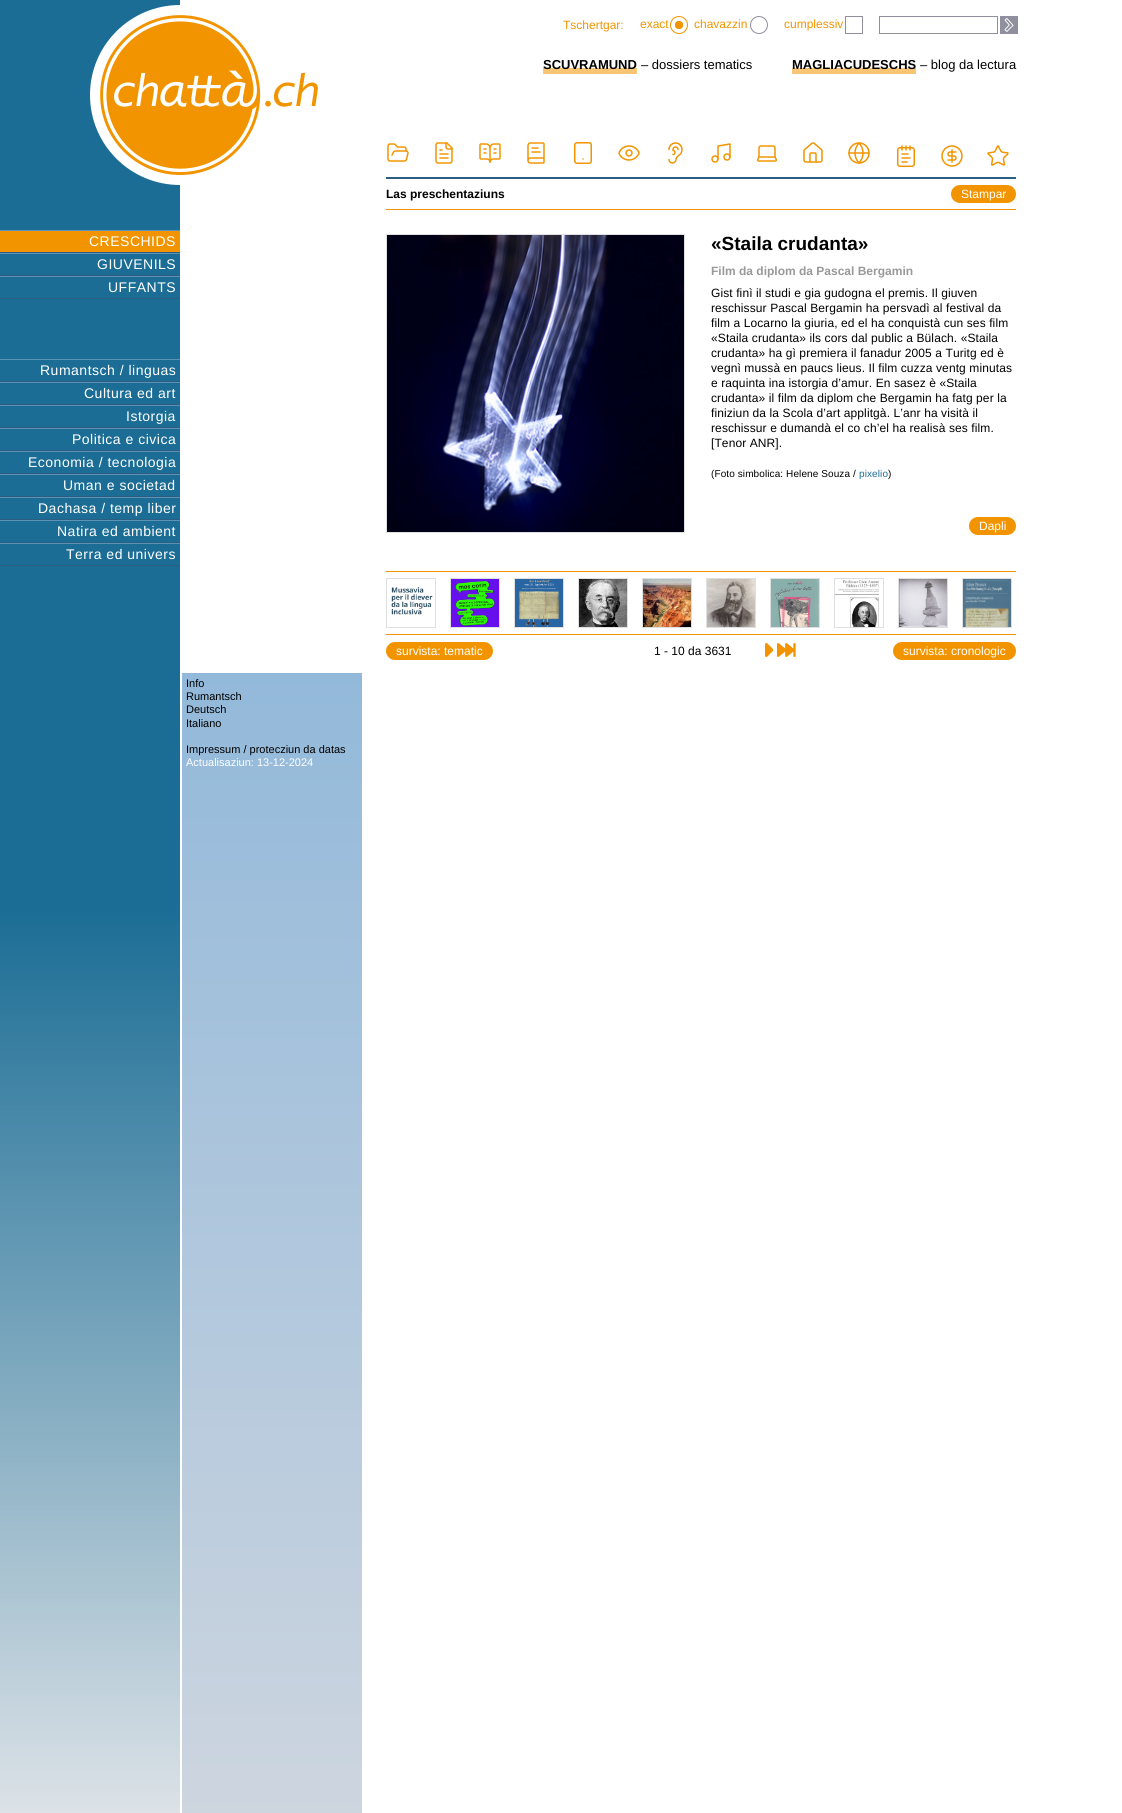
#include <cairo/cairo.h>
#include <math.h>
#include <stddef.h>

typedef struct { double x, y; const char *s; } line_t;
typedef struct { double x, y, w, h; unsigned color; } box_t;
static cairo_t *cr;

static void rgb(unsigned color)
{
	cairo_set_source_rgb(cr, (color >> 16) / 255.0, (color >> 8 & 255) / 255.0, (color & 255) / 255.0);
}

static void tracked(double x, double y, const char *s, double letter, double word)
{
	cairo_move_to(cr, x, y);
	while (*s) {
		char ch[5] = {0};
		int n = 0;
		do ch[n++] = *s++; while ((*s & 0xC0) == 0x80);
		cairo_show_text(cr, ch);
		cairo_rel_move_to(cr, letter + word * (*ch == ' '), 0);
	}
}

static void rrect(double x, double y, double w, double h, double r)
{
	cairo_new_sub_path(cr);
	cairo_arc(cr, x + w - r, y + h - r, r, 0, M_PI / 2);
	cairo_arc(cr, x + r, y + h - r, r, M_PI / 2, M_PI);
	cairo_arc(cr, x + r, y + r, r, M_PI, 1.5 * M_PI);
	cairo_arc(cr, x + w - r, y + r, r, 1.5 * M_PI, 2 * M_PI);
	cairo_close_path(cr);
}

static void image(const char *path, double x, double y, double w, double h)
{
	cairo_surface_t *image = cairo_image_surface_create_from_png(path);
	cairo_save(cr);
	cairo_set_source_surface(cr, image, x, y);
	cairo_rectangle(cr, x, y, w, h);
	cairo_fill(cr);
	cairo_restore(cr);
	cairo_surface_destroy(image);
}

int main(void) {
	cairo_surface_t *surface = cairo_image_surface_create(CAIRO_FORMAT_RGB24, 1122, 1813);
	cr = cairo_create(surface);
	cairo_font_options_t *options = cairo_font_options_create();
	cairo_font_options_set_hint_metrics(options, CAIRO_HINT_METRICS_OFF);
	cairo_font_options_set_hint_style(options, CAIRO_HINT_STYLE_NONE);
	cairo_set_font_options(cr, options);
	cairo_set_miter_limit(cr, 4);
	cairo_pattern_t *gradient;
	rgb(0xffffff);
	cairo_paint(cr);
	gradient = cairo_pattern_create_linear(90, 0, 90, 1813);
	cairo_pattern_add_color_stop_rgba(gradient, 0, 0.106, 0.427, 0.584, 1);
	cairo_pattern_add_color_stop_rgba(gradient, 0.5, 0.106, 0.427, 0.584, 1);
	cairo_pattern_add_color_stop_rgba(gradient, 1, 0.863, 0.886, 0.906, 1);
	cairo_set_source(cr, gradient);
	cairo_pattern_destroy(gradient);
	cairo_rectangle(cr, 0, 0, 180, 1813);
	cairo_fill(cr);
	rgb(0xffffff);
	cairo_arc(cr, 180, 95, 90, 0, 2 * M_PI);
	cairo_fill(cr);
	image("img/1.png", 100, 15, 218, 160);
	{
		static const box_t items[] = {
			{0, 231, 180, 21, 0xf29400},
			{0, 230, 180, 1, 0x5c92b4},
			{0, 252, 180, 1, 0x2c5e84},
			{0, 253, 180, 1, 0x5c92b4},
			{0, 275, 180, 1, 0x2c5e84},
			{0, 276, 180, 1, 0x5c92b4},
			{0, 298, 180, 1, 0x2c5e84},
			{0, 359, 180, 1, 0x5c92b4},
			{0, 381, 180, 1, 0x2c5e84},
			{0, 382, 180, 1, 0x5c92b4},
			{0, 404, 180, 1, 0x2c5e84},
			{0, 405, 180, 1, 0x5c92b4},
			{0, 427, 180, 1, 0x2c5e84},
			{0, 428, 180, 1, 0x5c92b4},
			{0, 450, 180, 1, 0x2c5e84},
			{0, 451, 180, 1, 0x5c92b4},
			{0, 473, 180, 1, 0x2c5e84},
			{0, 474, 180, 1, 0x5c92b4},
			{0, 496, 180, 1, 0x2c5e84},
			{0, 497, 180, 1, 0x5c92b4},
			{0, 519, 180, 1, 0x2c5e84},
			{0, 520, 180, 1, 0x5c92b4},
			{0, 542, 180, 1, 0x2c5e84},
			{0, 543, 180, 1, 0x5c92b4},
			{0, 565, 180, 1, 0x2c5e84},
		};
		for (size_t i = 0; i < sizeof items / sizeof *items; i++) {
			rgb(items[i].color);
			cairo_rectangle(cr, items[i].x, items[i].y, items[i].w, items[i].h);
			cairo_fill(cr);
		}
	}
	rgb(0xf29400);
	cairo_arc(cr, 679, 25, 4, 0, 2 * M_PI);
	cairo_fill(cr);
	gradient = cairo_pattern_create_radial(679, 25, 0, 679, 25, 11);
	cairo_pattern_add_color_stop_rgba(gradient, 0, 0.949, 0.58, 0, 1);
	cairo_pattern_add_color_stop_rgba(gradient, 0.5, 0.949, 0.58, 0, 1);
	cairo_pattern_add_color_stop_rgba(gradient, 0.6, 0.949, 0.58, 0, 0);
	cairo_pattern_add_color_stop_rgba(gradient, 1, 0, 0, 0, 0);
	cairo_set_source(cr, gradient);
	cairo_pattern_destroy(gradient);
	cairo_arc(cr, 679, 25, 4, 0, 2 * M_PI);
	cairo_fill(cr);
	cairo_arc(cr, 679, 25, 8.5, 0, 2 * M_PI);
	rgb(0xf29400);
	cairo_set_line_width(cr, 1);
	cairo_stroke(cr);
	cairo_arc(cr, 759, 25, 8.5, 0, 2 * M_PI);
	rgb(0x8f8f9d);
	cairo_stroke(cr);
	cairo_rectangle(cr, 845.5, 16.5, 17, 17);
	cairo_stroke(cr);
	cairo_rectangle(cr, 879.5, 16.5, 118, 17);
	cairo_stroke(cr);
	cairo_rectangle(cr, 1000, 16, 18, 18);
	cairo_fill(cr);
	image("img/2.png", 1004, 18, 10, 14);
	{
		static const box_t items[] = {
			{543, 68, 94, 6, 0xf8c575},
			{792, 68, 124, 6, 0xf8c575},
			{386, 177, 630, 2, 0x2c5e84},
		};
		for (size_t i = 0; i < sizeof items / sizeof *items; i++) {
			rgb(items[i].color);
			cairo_rectangle(cr, items[i].x, items[i].y, items[i].w, items[i].h);
			cairo_fill(cr);
		}
	}
	image("img/3.png", 387, 143, 22, 19);
	image("img/4.png", 435, 142, 18, 22);
	image("img/5.png", 479, 143, 22, 20);
	image("img/6.png", 527, 142, 18, 22);
	rrect(574.75, 142.75, 16.5, 20.5, 2.25);
	rgb(0xf29400);
	cairo_set_line_width(cr, 1.5);
	cairo_stroke(cr);
	cairo_new_path(cr);
	cairo_move_to(cr, 583, 159);
	cairo_line_to(cr, 583, 159);
	cairo_set_line_cap(cr, CAIRO_LINE_CAP_ROUND);
	cairo_set_line_join(cr, CAIRO_LINE_JOIN_ROUND);
	cairo_stroke(cr);
	image("img/7.png", 618, 145, 22, 16);
	image("img/8.png", 668, 142, 15, 22);
	cairo_new_path(cr);
	cairo_move_to(cr, 718, 159);
	cairo_line_to(cr, 718, 146);
	cairo_line_to(cr, 730, 144);
	cairo_line_to(cr, 730, 157);
	cairo_stroke(cr);
	cairo_arc(cr, 715, 159, 3, 0, 2 * M_PI);
	cairo_set_line_cap(cr, CAIRO_LINE_CAP_BUTT);
	cairo_set_line_join(cr, CAIRO_LINE_JOIN_MITER);
	cairo_stroke(cr);
	cairo_arc(cr, 727, 157, 3, 0, 2 * M_PI);
	cairo_stroke(cr);
	image("img/9.png", 756, 145, 22, 17);
	image("img/10.png", 803, 142, 20, 21);
	image("img/11.png", 848, 142, 22, 22);
	image("img/12.png", 897, 145, 18, 22);
	image("img/13.png", 941, 145, 22, 22);
	image("img/14.png", 987, 145, 22, 21);
	rrect(951, 185, 65, 18, 9);
	cairo_fill(cr);
	cairo_rectangle(cr, 386, 209, 630, 1);
	cairo_fill(cr);
	cairo_rectangle(cr, 386.5, 234.5, 298, 298);
	rgb(0xdedfe1);
	cairo_set_line_width(cr, 1);
	cairo_stroke(cr);
	image("img/15.png", 387, 235, 297, 297);
	rgb(0xf29400);
	rrect(969, 517, 47, 18, 9);
	cairo_fill(cr);
	cairo_rectangle(cr, 386, 571, 630, 1);
	cairo_fill(cr);
	cairo_rectangle(cr, 386.5, 578.5, 49, 49);
	rgb(0xdedfe1);
	cairo_stroke(cr);
	image("img/16.png", 391, 587, 42, 28);
	cairo_rectangle(cr, 450.5, 578.5, 49, 49);
	cairo_stroke(cr);
	image("img/17.png", 451, 579, 48, 48);
	cairo_rectangle(cr, 514.5, 578.5, 49, 49);
	cairo_stroke(cr);
	image("img/18.png", 515, 579, 48, 48);
	cairo_rectangle(cr, 578.5, 578.5, 49, 49);
	cairo_stroke(cr);
	image("img/19.png", 579, 579, 48, 48);
	cairo_rectangle(cr, 642.5, 578.5, 49, 49);
	cairo_stroke(cr);
	image("img/20.png", 643, 579, 48, 48);
	cairo_rectangle(cr, 706.5, 578.5, 49, 49);
	cairo_stroke(cr);
	image("img/21.png", 707, 579, 48, 48);
	cairo_rectangle(cr, 770.5, 578.5, 49, 49);
	cairo_stroke(cr);
	image("img/22.png", 771, 579, 48, 48);
	cairo_rectangle(cr, 834.5, 578.5, 49, 49);
	cairo_stroke(cr);
	image("img/23.png", 835, 580, 44, 47);
	cairo_rectangle(cr, 898.5, 578.5, 49, 49);
	cairo_stroke(cr);
	image("img/24.png", 899, 579, 48, 48);
	cairo_rectangle(cr, 962.5, 578.5, 49, 49);
	cairo_stroke(cr);
	image("img/25.png", 963, 579, 48, 48);
	rgb(0xf29400);
	cairo_rectangle(cr, 386, 634, 630, 1);
	cairo_fill(cr);
	rrect(386, 642, 107, 18, 9);
	cairo_fill(cr);
	image("img/26.png", 765, 643, 8, 14);
	image("img/27.png", 777, 643, 19, 14);
	rrect(893, 642, 123, 18, 9);
	cairo_fill(cr);
	gradient = cairo_pattern_create_linear(272, 673, 272, 1813);
	cairo_pattern_add_color_stop_rgba(gradient, 0, 0.576, 0.725, 0.855, 1);
	cairo_pattern_add_color_stop_rgba(gradient, 1, 0.804, 0.835, 0.875, 1);
	cairo_set_source(cr, gradient);
	cairo_pattern_destroy(gradient);
	cairo_rectangle(cr, 182, 673, 180, 1140);
	cairo_fill(cr);
	cairo_select_font_face(cr, "Liberation Sans", CAIRO_FONT_SLANT_NORMAL, CAIRO_FONT_WEIGHT_NORMAL);
	cairo_set_font_size(cr, 14);
	rgb(0xffffff);
	{
		static const line_t items[] = {
			{89, 246, "CRESCHIDS"},
			{97, 269, "GIUVENILS"},
			{108, 292, "UFFANTS"},
			{40, 375, "Rumantsch / linguas"},
			{84, 398, "Cultura ed art"},
			{126, 421, "Istorgia"},
			{72, 444, "Politica e civica"},
			{28, 467, "Economia / tecnologia"},
			{63, 490, "Uman e societad"},
			{38, 513, "Dachasa / temp liber"},
			{57, 536, "Natira ed ambient"},
			{66, 559, "Terra ed univers"},
		};
		for (size_t i = 0; i < sizeof items / sizeof *items; i++) {
			tracked(items[i].x, items[i].y, items[i].s, 0.5, 0);
		}
	}
	cairo_set_font_size(cr, 12);
	rgb(0xf29400);
	{
		static const line_t items[] = {
			{563, 29, "Tschertgar:"},
			{640, 28, "exact"},
			{694, 28, "chavazzin"},
			{784, 28, "cumplessiv"},
		};
		for (size_t i = 0; i < sizeof items / sizeof *items; i++) {
			cairo_move_to(cr, items[i].x, items[i].y);
			cairo_show_text(cr, items[i].s);
		}
	}
	cairo_select_font_face(cr, "Liberation Sans", CAIRO_FONT_SLANT_NORMAL, CAIRO_FONT_WEIGHT_BOLD);
	cairo_set_font_size(cr, 13);
	rgb(0x000000);
	cairo_move_to(cr, 543, 69);
	cairo_show_text(cr, "SCUVRAMUND");
	cairo_select_font_face(cr, "Liberation Sans", CAIRO_FONT_SLANT_NORMAL, CAIRO_FONT_WEIGHT_NORMAL);
	cairo_move_to(cr, 641, 69);
	cairo_show_text(cr, "– dossiers tematics");
	cairo_select_font_face(cr, "Liberation Sans", CAIRO_FONT_SLANT_NORMAL, CAIRO_FONT_WEIGHT_BOLD);
	cairo_move_to(cr, 792, 69);
	cairo_show_text(cr, "MAGLIACUDESCHS");
	cairo_select_font_face(cr, "Liberation Sans", CAIRO_FONT_SLANT_NORMAL, CAIRO_FONT_WEIGHT_NORMAL);
	cairo_move_to(cr, 920, 69);
	cairo_show_text(cr, "– blog da lectura");
	cairo_select_font_face(cr, "Liberation Sans", CAIRO_FONT_SLANT_NORMAL, CAIRO_FONT_WEIGHT_BOLD);
	cairo_set_font_size(cr, 12);
	cairo_move_to(cr, 386, 198);
	cairo_show_text(cr, "Las preschentaziuns");
	cairo_select_font_face(cr, "Liberation Sans", CAIRO_FONT_SLANT_NORMAL, CAIRO_FONT_WEIGHT_NORMAL);
	rgb(0xffffff);
	cairo_move_to(cr, 961, 198);
	cairo_show_text(cr, "Stampar");
	cairo_select_font_face(cr, "Liberation Sans", CAIRO_FONT_SLANT_NORMAL, CAIRO_FONT_WEIGHT_BOLD);
	cairo_set_font_size(cr, 19);
	rgb(0x000000);
	cairo_move_to(cr, 711, 250);
	cairo_show_text(cr, "«Staila crudanta»");
	cairo_set_font_size(cr, 12);
	rgb(0x999999);
	cairo_move_to(cr, 711, 275);
	cairo_show_text(cr, "Film da diplom da Pascal Bergamin");
	cairo_select_font_face(cr, "Liberation Sans", CAIRO_FONT_SLANT_NORMAL, CAIRO_FONT_WEIGHT_NORMAL);
	rgb(0x000000);
	{
		static const line_t items[] = {
			{711, 297, "Gist finì il studi e gia gudogna el premis. Il giuven"},
			{711, 312, "reschissur Pascal Bergamin ha persvadì al festival da"},
			{711, 327, "film a Locarno la giuria, ed el ha conquistà cun ses film"},
			{711, 342, "«Staila crudanta» ils cors dal public a Bülach. «Staila"},
			{711, 357, "crudanta» ha gì premiera il fanadur 2005 a Turitg ed è"},
			{711, 372, "vegnì mussà en paucs lieus. Il film cuzza ventg minutas"},
			{711, 387, "e raquinta ina istorgia d’amur. En sasez è «Staila"},
			{711, 402, "crudanta» il film da diplom che Bergamin ha fatg per la"},
			{711, 417, "finiziun da la Scola d’art applitgà. L’anr ha visità il"},
			{711, 432, "reschissur e dumandà el co ch’el ha realisà ses film."},
			{711, 447, "[Tenor ANR]."},
		};
		for (size_t i = 0; i < sizeof items / sizeof *items; i++) {
			tracked(items[i].x, items[i].y, items[i].s, 0.1, 0);
		}
	}
	cairo_set_font_size(cr, 10);
	tracked(711, 477, "(Foto simbolica: Helene Souza /", 0.1, 0);
	rgb(0x1b6d95);
	tracked(859, 477, "pixelio", 0.1, 0);
	rgb(0x000000);
	tracked(888, 477, ")", 0.1, 0);
	cairo_set_font_size(cr, 12);
	rgb(0xffffff);
	cairo_move_to(cr, 979, 530);
	cairo_show_text(cr, "Dapli");
	cairo_move_to(cr, 396, 655);
	cairo_show_text(cr, "survista: tematic");
	rgb(0x000000);
	cairo_move_to(cr, 654, 655);
	cairo_show_text(cr, "1 - 10 da 3631");
	rgb(0xffffff);
	cairo_move_to(cr, 903, 655);
	cairo_show_text(cr, "survista: cronologic");
	cairo_set_font_size(cr, 11);
	rgb(0x000000);
	{
		static const line_t items[] = {
			{186, 687, "Info"},
			{186, 700, "Rumantsch"},
			{186, 713, "Deutsch"},
			{186, 727, "Italiano"},
			{186, 753, "Impressum / protecziun da datas"},
		};
		for (size_t i = 0; i < sizeof items / sizeof *items; i++) {
			cairo_move_to(cr, items[i].x, items[i].y);
			cairo_show_text(cr, items[i].s);
		}
	}
	rgb(0xffffff);
	cairo_move_to(cr, 186, 766);
	cairo_show_text(cr, "Actualisaziun: 13-12-2024");
	cairo_surface_write_to_png(surface, "page.png");
	cairo_font_options_destroy(options);
	cairo_destroy(cr);
	cairo_surface_destroy(surface);
	return 0;
}
